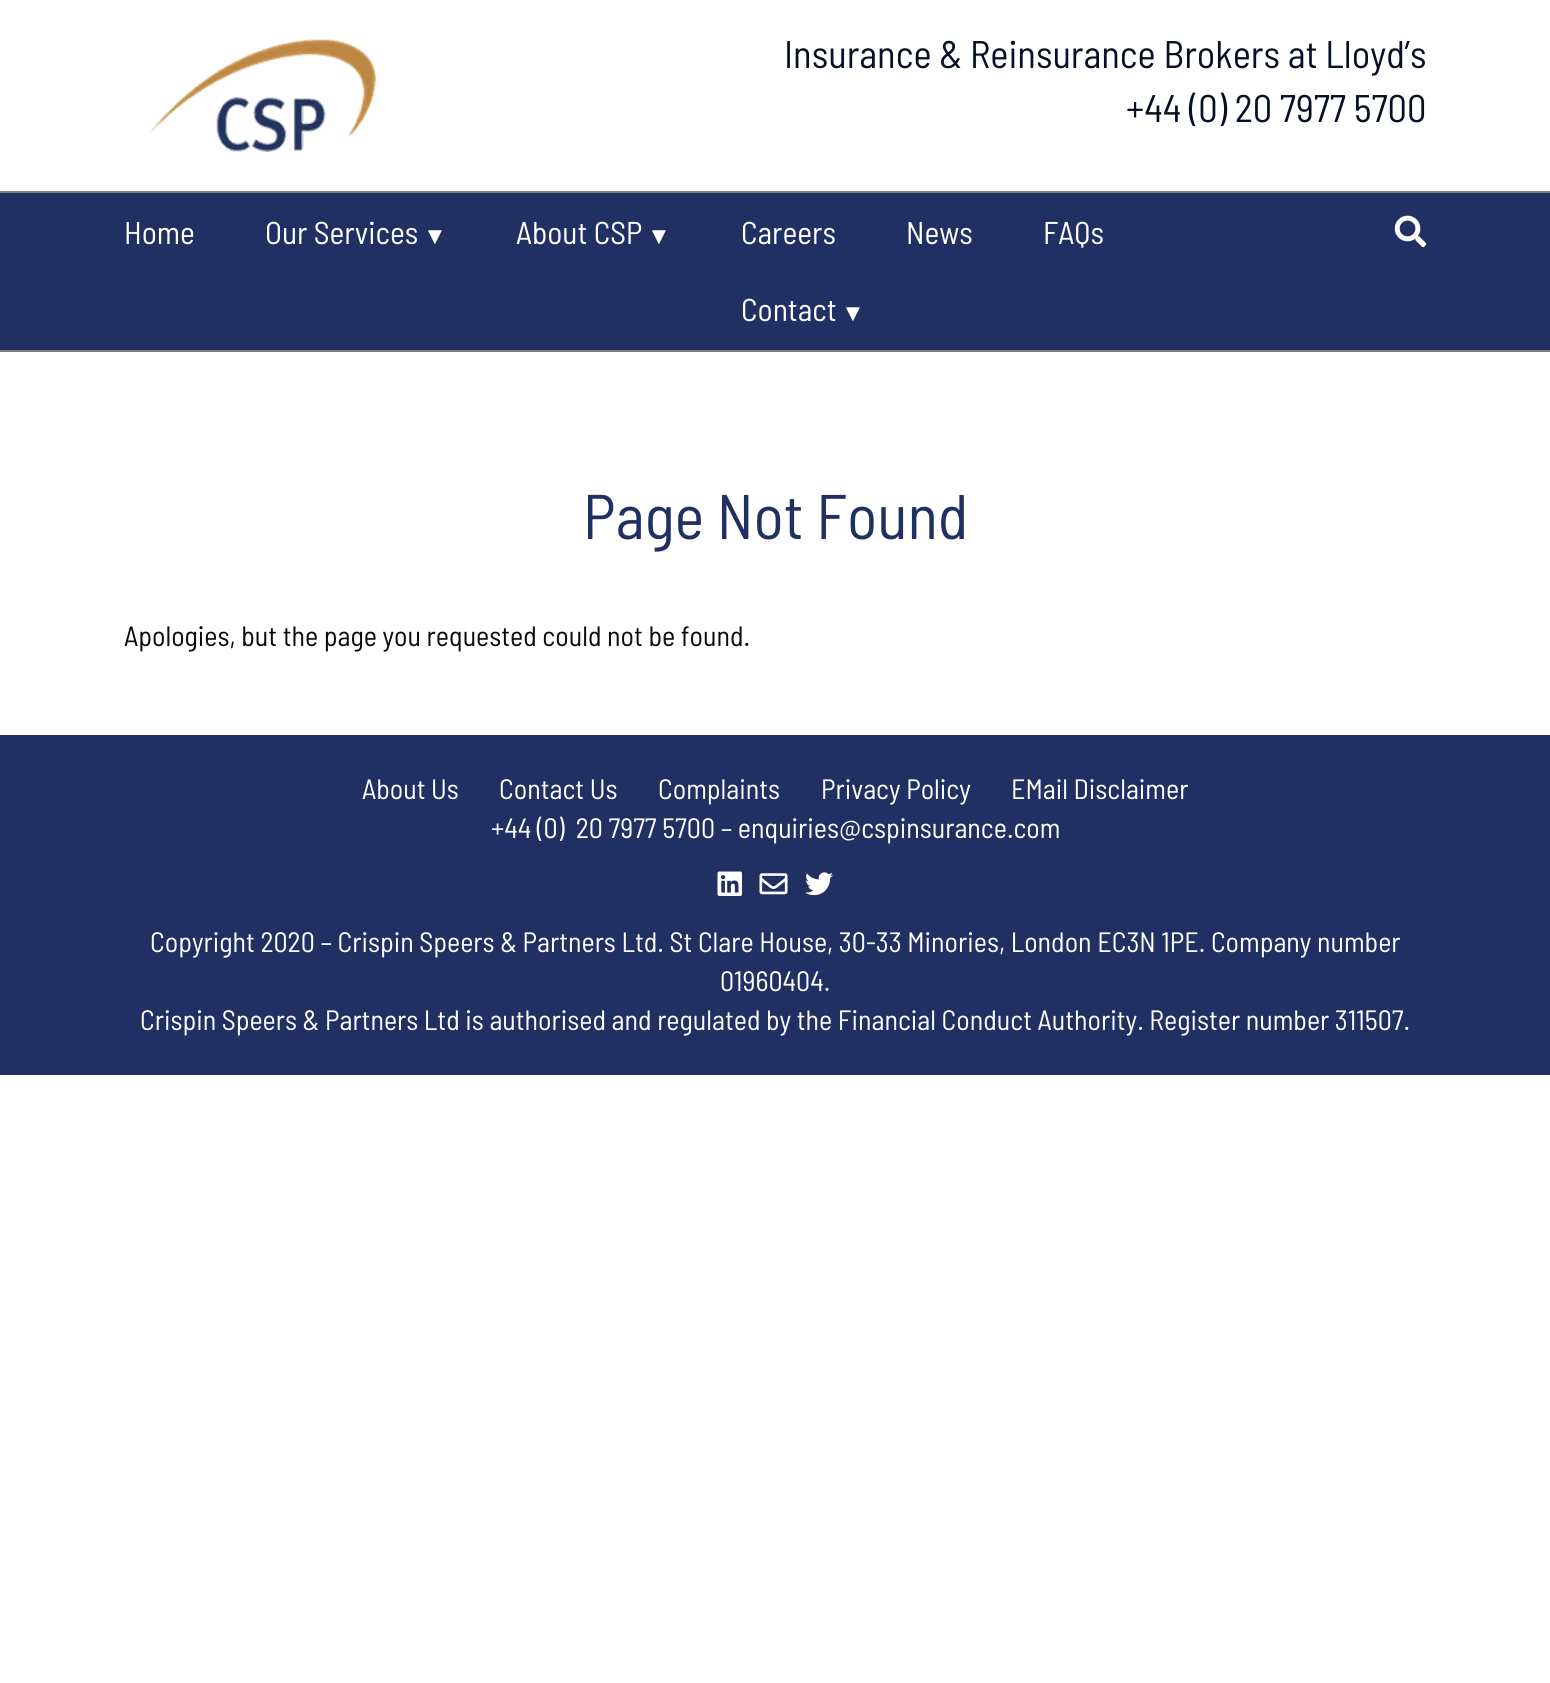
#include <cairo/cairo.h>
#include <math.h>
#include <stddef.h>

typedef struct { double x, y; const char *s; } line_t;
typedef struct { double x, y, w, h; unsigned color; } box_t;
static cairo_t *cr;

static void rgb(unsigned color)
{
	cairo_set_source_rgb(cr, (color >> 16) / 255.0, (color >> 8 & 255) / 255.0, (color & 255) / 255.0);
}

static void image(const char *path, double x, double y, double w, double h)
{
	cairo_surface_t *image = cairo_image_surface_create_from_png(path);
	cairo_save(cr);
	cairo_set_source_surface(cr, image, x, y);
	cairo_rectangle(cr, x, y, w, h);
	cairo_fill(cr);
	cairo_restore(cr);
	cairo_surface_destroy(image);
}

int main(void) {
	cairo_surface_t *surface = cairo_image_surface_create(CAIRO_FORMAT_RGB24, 1550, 1683);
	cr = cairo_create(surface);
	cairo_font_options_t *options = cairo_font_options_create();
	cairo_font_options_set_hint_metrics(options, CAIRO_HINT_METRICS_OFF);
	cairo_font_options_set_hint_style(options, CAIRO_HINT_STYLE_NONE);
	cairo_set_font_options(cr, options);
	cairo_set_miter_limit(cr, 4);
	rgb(0xffffff);
	cairo_paint(cr);
	image("img/1.png", 150, 39, 227, 113);
	{
		static const box_t items[] = {
			{0, 193, 1550, 157, 0x203063},
			{0, 191, 1550, 2, 0x808080},
			{0, 350, 1550, 2, 0x808080},
		};
		for (size_t i = 0; i < sizeof items / sizeof *items; i++) {
			rgb(items[i].color);
			cairo_rectangle(cr, items[i].x, items[i].y, items[i].w, items[i].h);
			cairo_fill(cr);
		}
	}
	image("img/2.png", 1394, 215, 33, 33);
	rgb(0x203063);
	cairo_rectangle(cr, 0, 735, 1550, 340);
	cairo_fill(cr);
	image("img/3.png", 717, 871, 25, 25);
	image("img/4.png", 759, 873, 29, 22);
	image("img/5.png", 805, 872, 28, 24);
	cairo_select_font_face(cr, "Barlow Semi Condensed", CAIRO_FONT_SLANT_NORMAL, CAIRO_FONT_WEIGHT_NORMAL);
	cairo_set_font_size(cr, 38.5);
	rgb(0x060f26);
	cairo_move_to(cr, 784, 68);
	cairo_show_text(cr, "Insurance & Reinsurance Brokers at Lloyd’s");
	cairo_move_to(cr, 1126, 122);
	cairo_show_text(cr, "+44 (0) 20 7977 5700");
	cairo_set_font_size(cr, 31.5);
	rgb(0xffffff);
	cairo_move_to(cr, 124, 244);
	cairo_show_text(cr, "Home");
	cairo_move_to(cr, 265, 244);
	cairo_show_text(cr, "Our Services");
	cairo_select_font_face(cr, "Liberation Sans", CAIRO_FONT_SLANT_NORMAL, CAIRO_FONT_WEIGHT_NORMAL);
	cairo_set_font_size(cr, 24);
	cairo_move_to(cr, 423, 244);
	cairo_show_text(cr, "▼");
	cairo_select_font_face(cr, "Barlow Semi Condensed", CAIRO_FONT_SLANT_NORMAL, CAIRO_FONT_WEIGHT_NORMAL);
	cairo_set_font_size(cr, 31.5);
	cairo_move_to(cr, 516, 244);
	cairo_show_text(cr, "About CSP");
	cairo_select_font_face(cr, "Liberation Sans", CAIRO_FONT_SLANT_NORMAL, CAIRO_FONT_WEIGHT_NORMAL);
	cairo_set_font_size(cr, 24);
	cairo_move_to(cr, 647, 244);
	cairo_show_text(cr, "▼");
	cairo_select_font_face(cr, "Barlow Semi Condensed", CAIRO_FONT_SLANT_NORMAL, CAIRO_FONT_WEIGHT_NORMAL);
	cairo_set_font_size(cr, 31.5);
	{
		static const line_t items[] = {
			{741, 244, "Careers"},
			{906, 244, "News"},
			{1043, 244, "FAQs"},
			{741, 321, "Contact"},
		};
		for (size_t i = 0; i < sizeof items / sizeof *items; i++) {
			cairo_move_to(cr, items[i].x, items[i].y);
			cairo_show_text(cr, items[i].s);
		}
	}
	cairo_select_font_face(cr, "Liberation Sans", CAIRO_FONT_SLANT_NORMAL, CAIRO_FONT_WEIGHT_NORMAL);
	cairo_set_font_size(cr, 24);
	cairo_move_to(cr, 841, 321);
	cairo_show_text(cr, "▼");
	cairo_select_font_face(cr, "Barlow Semi Condensed", CAIRO_FONT_SLANT_NORMAL, CAIRO_FONT_WEIGHT_NORMAL);
	cairo_set_font_size(cr, 63);
	rgb(0x203063);
	cairo_move_to(cr, 583, 539);
	cairo_show_text(cr, "Page Not Found");
	cairo_set_font_size(cr, 28);
	rgb(0x0a0a0a);
	cairo_move_to(cr, 124, 646);
	cairo_show_text(cr, "Apologies, but the page you requested could not be found.");
	rgb(0xffffff);
	{
		static const line_t items[] = {
			{362, 799, "About Us"},
			{499, 799, "Contact Us"},
			{658, 799, "Complaints"},
			{821, 799, "Privacy Policy"},
			{1011, 799, "EMail Disclaimer"},
			{491, 838, "+44 (0)  20 7977 5700 – enquiries@cspinsurance.com"},
			{150, 952, "Copyright 2020 – Crispin Speers & Partners Ltd. St Clare House, 30-33 Minories, London EC3N 1PE. Company number"},
			{720, 991, "01960404."},
			{140, 1030, "Crispin Speers & Partners Ltd is authorised and regulated by the Financial Conduct Authority. Register number 311507."},
		};
		for (size_t i = 0; i < sizeof items / sizeof *items; i++) {
			cairo_move_to(cr, items[i].x, items[i].y);
			cairo_show_text(cr, items[i].s);
		}
	}
	cairo_surface_write_to_png(surface, "page.png");
	cairo_font_options_destroy(options);
	cairo_destroy(cr);
	cairo_surface_destroy(surface);
	return 0;
}
